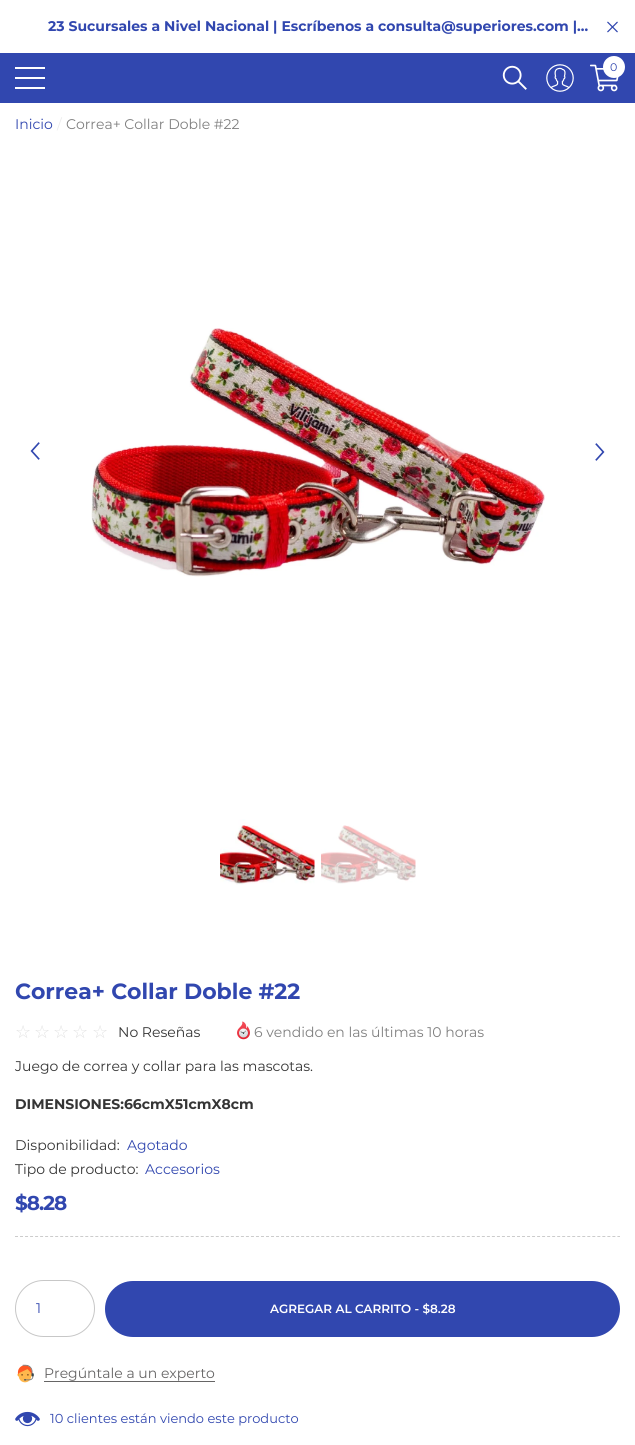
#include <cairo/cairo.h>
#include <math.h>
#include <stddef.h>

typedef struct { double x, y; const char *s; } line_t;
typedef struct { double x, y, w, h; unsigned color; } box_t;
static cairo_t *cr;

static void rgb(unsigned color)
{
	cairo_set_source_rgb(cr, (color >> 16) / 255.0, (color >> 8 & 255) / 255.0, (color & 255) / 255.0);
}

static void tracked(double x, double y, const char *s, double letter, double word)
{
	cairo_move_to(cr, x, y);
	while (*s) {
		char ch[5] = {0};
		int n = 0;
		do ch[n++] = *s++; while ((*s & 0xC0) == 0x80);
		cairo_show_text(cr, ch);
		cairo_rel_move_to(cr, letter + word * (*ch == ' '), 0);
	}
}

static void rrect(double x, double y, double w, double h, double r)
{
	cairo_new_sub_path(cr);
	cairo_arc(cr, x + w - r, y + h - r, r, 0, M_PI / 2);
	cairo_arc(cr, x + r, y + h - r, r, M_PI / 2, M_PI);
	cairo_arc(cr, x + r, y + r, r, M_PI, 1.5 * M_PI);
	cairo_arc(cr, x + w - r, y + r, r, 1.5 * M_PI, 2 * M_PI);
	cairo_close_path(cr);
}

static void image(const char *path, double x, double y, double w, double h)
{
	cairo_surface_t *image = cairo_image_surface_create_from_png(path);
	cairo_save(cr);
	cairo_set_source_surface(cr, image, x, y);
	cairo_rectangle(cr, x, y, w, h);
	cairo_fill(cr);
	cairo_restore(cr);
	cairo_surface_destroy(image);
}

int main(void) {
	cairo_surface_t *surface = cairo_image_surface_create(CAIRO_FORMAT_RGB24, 635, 1445);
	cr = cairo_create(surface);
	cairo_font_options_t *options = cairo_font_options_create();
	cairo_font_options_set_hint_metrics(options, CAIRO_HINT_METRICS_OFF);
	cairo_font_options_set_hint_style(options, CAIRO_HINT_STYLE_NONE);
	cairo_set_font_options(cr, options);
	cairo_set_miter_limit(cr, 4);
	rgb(0xffffff);
	cairo_paint(cr);
	image("img/1.png", 607, 21, 11, 12);
	{
		static const box_t items[] = {
			{0, 53, 635, 50, 0x3147af},
			{15, 77, 30, 2, 0xffffff},
			{15, 67, 30, 2, 0xffffff},
			{15, 87, 30, 2, 0xffffff},
		};
		for (size_t i = 0; i < sizeof items / sizeof *items; i++) {
			rgb(items[i].color);
			cairo_rectangle(cr, items[i].x, items[i].y, items[i].w, items[i].h);
			cairo_fill(cr);
		}
	}
	image("img/2.png", 502, 65, 25, 25);
	image("img/3.png", 546, 64, 28, 28);
	image("img/4.png", 590, 64, 29, 28);
	cairo_arc(cr, 614, 67, 11, 0, 2 * M_PI);
	cairo_fill(cr);
	image("img/5.png", 30, 442, 10, 18);
	image("img/6.png", 91, 328, 454, 249);
	image("img/7.png", 595, 443, 10, 18);
	image("img/8.png", 220, 819, 95, 66);
	image("img/9.png", 321, 825, 95, 59);
	image("img/10.png", 237, 1021, 13, 19);
	cairo_new_path(cr);
	cairo_move_to(cr, 15, 1236.5);
	cairo_line_to(cr, 620, 1236.5);
	rgb(0xcccccc);
	cairo_set_line_width(cr, 1);
	cairo_set_dash(cr, (double[]){3, 2.02}, 2, 0);
	cairo_stroke(cr);
	rrect(15.5, 1280.5, 79, 56, 28);
	rgb(0xc7c7c7);
	cairo_set_dash(cr, NULL, 0, 0);
	cairo_stroke(cr);
	rgb(0x3147af);
	rrect(105, 1281, 515, 56, 28);
	cairo_fill(cr);
	image("img/11.png", 17, 1364, 17, 19);
	rgb(0x666565);
	cairo_rectangle(cr, 44, 1381, 171, 1);
	cairo_fill(cr);
	image("img/12.png", 15, 1411, 25, 16);
	cairo_select_font_face(cr, "Montserrat", CAIRO_FONT_SLANT_NORMAL, CAIRO_FONT_WEIGHT_BOLD);
	cairo_set_font_size(cr, 14);
	rgb(0x3147af);
	cairo_move_to(cr, 48, 31);
	cairo_show_text(cr, "23 Sucursales a Nivel Nacional | Escríbenos a consulta@superiores.com |…");
	cairo_select_font_face(cr, "Montserrat", CAIRO_FONT_SLANT_NORMAL, CAIRO_FONT_WEIGHT_NORMAL);
	cairo_set_font_size(cr, 11);
	cairo_move_to(cr, 610, 71);
	cairo_show_text(cr, "0");
	cairo_set_font_size(cr, 14);
	cairo_move_to(cr, 15, 129);
	cairo_show_text(cr, "Inicio");
	rgb(0xececec);
	cairo_move_to(cr, 57, 129);
	cairo_show_text(cr, "/");
	rgb(0x808080);
	cairo_move_to(cr, 66, 129);
	cairo_show_text(cr, "Correa+ Collar Doble #22");
	cairo_select_font_face(cr, "Montserrat", CAIRO_FONT_SLANT_NORMAL, CAIRO_FONT_WEIGHT_BOLD);
	cairo_set_font_size(cr, 22);
	rgb(0x3147af);
	cairo_move_to(cr, 15, 999);
	cairo_show_text(cr, "Correa+ Collar Doble #22");
	cairo_select_font_face(cr, "DejaVu Sans", CAIRO_FONT_SLANT_NORMAL, CAIRO_FONT_WEIGHT_NORMAL);
	cairo_set_font_size(cr, 18);
	rgb(0xe2e2e2);
	{
		static const line_t items[] = {
			{15, 1038, "☆"},
			{34, 1038, "☆"},
			{53, 1038, "☆"},
			{72, 1038, "☆"},
			{92, 1038, "☆"},
		};
		for (size_t i = 0; i < sizeof items / sizeof *items; i++) {
			cairo_move_to(cr, items[i].x, items[i].y);
			cairo_show_text(cr, items[i].s);
		}
	}
	cairo_select_font_face(cr, "Montserrat", CAIRO_FONT_SLANT_NORMAL, CAIRO_FONT_WEIGHT_NORMAL);
	cairo_set_font_size(cr, 14);
	rgb(0x353535);
	cairo_move_to(cr, 118, 1037);
	cairo_show_text(cr, "No Reseñas");
	rgb(0x808080);
	cairo_move_to(cr, 254, 1037);
	cairo_show_text(cr, "6 vendido en las últimas 10 horas");
	rgb(0x353535);
	cairo_move_to(cr, 15, 1071);
	cairo_show_text(cr, "Juego de correa y collar para las mascotas.");
	cairo_select_font_face(cr, "Montserrat", CAIRO_FONT_SLANT_NORMAL, CAIRO_FONT_WEIGHT_BOLD);
	cairo_move_to(cr, 15, 1109);
	cairo_show_text(cr, "DIMENSIONES:66cmX51cmX8cm");
	cairo_select_font_face(cr, "Montserrat", CAIRO_FONT_SLANT_NORMAL, CAIRO_FONT_WEIGHT_NORMAL);
	cairo_move_to(cr, 15, 1150);
	cairo_show_text(cr, "Disponibilidad:");
	rgb(0x3147af);
	cairo_move_to(cr, 127, 1150);
	cairo_show_text(cr, "Agotado");
	rgb(0x353535);
	cairo_move_to(cr, 15, 1174);
	cairo_show_text(cr, "Tipo de producto:");
	rgb(0x3147af);
	cairo_move_to(cr, 145, 1174);
	cairo_show_text(cr, "Accesorios");
	cairo_select_font_face(cr, "Montserrat", CAIRO_FONT_SLANT_NORMAL, CAIRO_FONT_WEIGHT_BOLD);
	cairo_set_font_size(cr, 20);
	tracked(15, 1210, "$8.28", -1, 0);
	cairo_select_font_face(cr, "Montserrat", CAIRO_FONT_SLANT_NORMAL, CAIRO_FONT_WEIGHT_NORMAL);
	cairo_set_font_size(cr, 14);
	cairo_move_to(cr, 36, 1313);
	cairo_show_text(cr, "1");
	cairo_select_font_face(cr, "Montserrat SemiBold", CAIRO_FONT_SLANT_NORMAL, CAIRO_FONT_WEIGHT_NORMAL);
	cairo_set_font_size(cr, 12);
	rgb(0xffffff);
	cairo_move_to(cr, 270, 1313);
	cairo_show_text(cr, "AGREGAR AL CARRITO - $8.28");
	cairo_select_font_face(cr, "Montserrat", CAIRO_FONT_SLANT_NORMAL, CAIRO_FONT_WEIGHT_NORMAL);
	cairo_set_font_size(cr, 14);
	rgb(0x666565);
	cairo_move_to(cr, 44, 1378);
	cairo_show_text(cr, "Pregúntale a un experto");
	cairo_set_font_size(cr, 13);
	rgb(0x3147af);
	cairo_move_to(cr, 50, 1423);
	cairo_show_text(cr, "10 clientes están viendo este producto");
	cairo_surface_write_to_png(surface, "page.png");
	cairo_font_options_destroy(options);
	cairo_destroy(cr);
	cairo_surface_destroy(surface);
	return 0;
}
